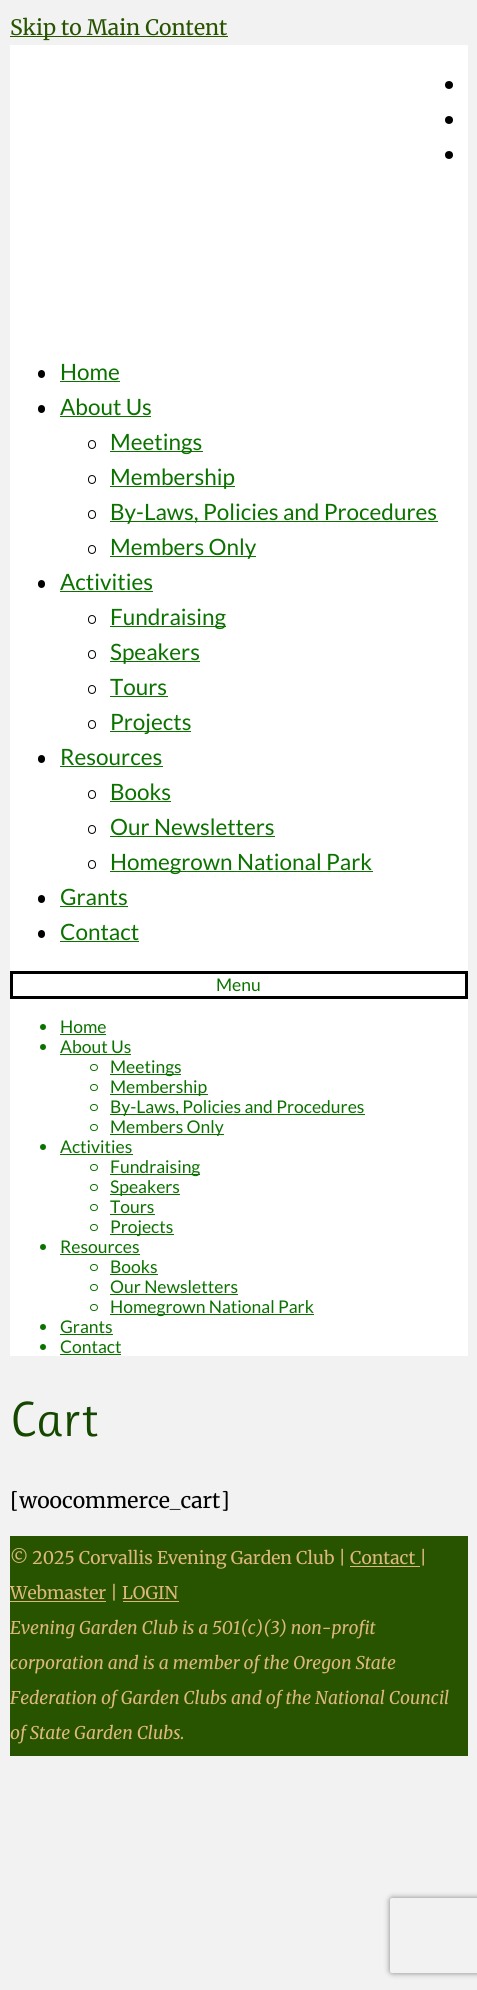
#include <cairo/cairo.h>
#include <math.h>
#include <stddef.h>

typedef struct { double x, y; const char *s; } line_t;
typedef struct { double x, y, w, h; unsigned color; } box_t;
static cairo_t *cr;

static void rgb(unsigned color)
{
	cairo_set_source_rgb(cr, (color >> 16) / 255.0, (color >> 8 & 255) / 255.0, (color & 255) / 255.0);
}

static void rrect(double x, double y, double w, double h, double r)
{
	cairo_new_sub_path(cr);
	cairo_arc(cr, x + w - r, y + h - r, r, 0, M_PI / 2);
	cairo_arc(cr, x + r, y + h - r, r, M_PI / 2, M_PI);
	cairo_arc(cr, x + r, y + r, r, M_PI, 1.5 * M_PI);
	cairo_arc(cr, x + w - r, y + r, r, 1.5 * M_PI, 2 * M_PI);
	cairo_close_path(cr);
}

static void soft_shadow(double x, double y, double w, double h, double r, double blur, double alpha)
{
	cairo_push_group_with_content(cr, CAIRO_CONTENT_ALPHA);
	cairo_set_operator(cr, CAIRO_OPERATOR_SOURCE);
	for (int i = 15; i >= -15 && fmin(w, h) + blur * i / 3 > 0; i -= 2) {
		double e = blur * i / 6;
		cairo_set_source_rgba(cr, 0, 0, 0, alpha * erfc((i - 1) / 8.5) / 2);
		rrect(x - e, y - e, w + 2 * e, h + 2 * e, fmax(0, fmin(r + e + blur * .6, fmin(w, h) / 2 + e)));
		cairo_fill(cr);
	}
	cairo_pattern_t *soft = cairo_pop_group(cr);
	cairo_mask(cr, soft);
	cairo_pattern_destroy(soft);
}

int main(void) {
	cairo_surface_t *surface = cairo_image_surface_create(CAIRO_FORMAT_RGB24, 477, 1990);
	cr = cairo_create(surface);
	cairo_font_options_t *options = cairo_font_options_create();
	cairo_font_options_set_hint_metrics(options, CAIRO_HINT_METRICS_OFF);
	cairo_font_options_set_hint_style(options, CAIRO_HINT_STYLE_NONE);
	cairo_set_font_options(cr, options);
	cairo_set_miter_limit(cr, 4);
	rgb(0xf2f2f2);
	cairo_paint(cr);
	rgb(0x285400);
	cairo_rectangle(cr, 10, 36, 218, 1);
	cairo_fill(cr);
	rgb(0xffffff);
	cairo_rectangle(cr, 10, 45, 458, 1311);
	cairo_fill(cr);
	rgb(0x000000);
	cairo_arc(cr, 449, 85, 4, 0, 2 * M_PI);
	cairo_fill(cr);
	cairo_arc(cr, 449, 120, 4, 0, 2 * M_PI);
	cairo_fill(cr);
	cairo_arc(cr, 449, 155, 4, 0, 2 * M_PI);
	cairo_fill(cr);
	rrect(38, 370, 7, 8, 3.5);
	cairo_fill(cr);
	rgb(0x0b7200);
	cairo_rectangle(cr, 60, 381, 60, 1);
	cairo_fill(cr);
	rgb(0x000000);
	rrect(38, 405, 7, 8, 3.5);
	cairo_fill(cr);
	rgb(0x0b7200);
	cairo_rectangle(cr, 60, 416, 91, 1);
	cairo_fill(cr);
	rrect(88.5, 440.5, 7, 8, 3.5);
	rgb(0x000000);
	cairo_set_line_width(cr, 1);
	cairo_stroke(cr);
	rgb(0x0b7200);
	cairo_rectangle(cr, 110, 451, 93, 1);
	cairo_fill(cr);
	rrect(88.5, 475.5, 7, 8, 3.5);
	rgb(0x000000);
	cairo_stroke(cr);
	rgb(0x0b7200);
	cairo_rectangle(cr, 110, 486, 125, 1);
	cairo_fill(cr);
	rrect(88.5, 510.5, 7, 8, 3.5);
	rgb(0x000000);
	cairo_stroke(cr);
	rgb(0x0b7200);
	cairo_rectangle(cr, 110, 521, 328, 1);
	cairo_fill(cr);
	rrect(88.5, 545.5, 7, 8, 3.5);
	rgb(0x000000);
	cairo_stroke(cr);
	rgb(0x0b7200);
	cairo_rectangle(cr, 110, 556, 146, 1);
	cairo_fill(cr);
	rgb(0x000000);
	rrect(38, 580, 7, 8, 3.5);
	cairo_fill(cr);
	rgb(0x0b7200);
	cairo_rectangle(cr, 60, 591, 93, 1);
	cairo_fill(cr);
	rrect(88.5, 615.5, 7, 8, 3.5);
	rgb(0x000000);
	cairo_stroke(cr);
	rgb(0x0b7200);
	cairo_rectangle(cr, 110, 626, 116, 1);
	cairo_fill(cr);
	rrect(88.5, 650.5, 7, 8, 3.5);
	rgb(0x000000);
	cairo_stroke(cr);
	rgb(0x0b7200);
	cairo_rectangle(cr, 110, 661, 90, 1);
	cairo_fill(cr);
	rrect(88.5, 685.5, 7, 8, 3.5);
	rgb(0x000000);
	cairo_stroke(cr);
	rgb(0x0b7200);
	cairo_rectangle(cr, 110, 696, 58, 1);
	cairo_fill(cr);
	rrect(88.5, 720.5, 7, 8, 3.5);
	rgb(0x000000);
	cairo_stroke(cr);
	rgb(0x0b7200);
	cairo_rectangle(cr, 110, 731, 81, 1);
	cairo_fill(cr);
	rgb(0x000000);
	rrect(38, 755, 7, 8, 3.5);
	cairo_fill(cr);
	rgb(0x0b7200);
	cairo_rectangle(cr, 60, 766, 103, 1);
	cairo_fill(cr);
	rrect(88.5, 790.5, 7, 8, 3.5);
	rgb(0x000000);
	cairo_stroke(cr);
	rgb(0x0b7200);
	cairo_rectangle(cr, 110, 801, 61, 1);
	cairo_fill(cr);
	rrect(88.5, 825.5, 7, 8, 3.5);
	rgb(0x000000);
	cairo_stroke(cr);
	rgb(0x0b7200);
	cairo_rectangle(cr, 110, 836, 165, 1);
	cairo_fill(cr);
	rrect(88.5, 860.5, 7, 8, 3.5);
	rgb(0x000000);
	cairo_stroke(cr);
	rgb(0x0b7200);
	cairo_rectangle(cr, 110, 871, 263, 1);
	cairo_fill(cr);
	rgb(0x000000);
	rrect(38, 895, 7, 8, 3.5);
	cairo_fill(cr);
	rgb(0x0b7200);
	cairo_rectangle(cr, 60, 906, 68, 1);
	cairo_fill(cr);
	rgb(0x000000);
	rrect(38, 930, 7, 8, 3.5);
	cairo_fill(cr);
	rgb(0x0b7200);
	cairo_rectangle(cr, 60, 941, 79, 1);
	cairo_fill(cr);
	cairo_rectangle(cr, 11.5, 972.5, 455, 25);
	rgb(0x000000);
	cairo_set_line_width(cr, 3);
	cairo_stroke(cr);
	rgb(0x0b7200);
	cairo_arc(cr, 43, 1027, 3, 0, 2 * M_PI);
	cairo_fill(cr);
	cairo_rectangle(cr, 60, 1034, 46, 1);
	cairo_fill(cr);
	cairo_arc(cr, 43, 1047, 3, 0, 2 * M_PI);
	cairo_fill(cr);
	cairo_rectangle(cr, 60, 1054, 71, 1);
	cairo_fill(cr);
	rrect(90.5, 1064.5, 7, 6, 3);
	cairo_set_line_width(cr, 1);
	cairo_stroke(cr);
	cairo_rectangle(cr, 110, 1074, 71, 1);
	cairo_fill(cr);
	rrect(90.5, 1084.5, 7, 6, 3);
	cairo_stroke(cr);
	cairo_rectangle(cr, 110, 1094, 98, 1);
	cairo_fill(cr);
	rrect(90.5, 1104.5, 7, 6, 3);
	cairo_stroke(cr);
	cairo_rectangle(cr, 110, 1114, 255, 1);
	cairo_fill(cr);
	rrect(90.5, 1124.5, 7, 6, 3);
	cairo_stroke(cr);
	cairo_rectangle(cr, 110, 1134, 114, 1);
	cairo_fill(cr);
	cairo_arc(cr, 43, 1147, 3, 0, 2 * M_PI);
	cairo_fill(cr);
	cairo_rectangle(cr, 60, 1154, 73, 1);
	cairo_fill(cr);
	rrect(90.5, 1164.5, 7, 6, 3);
	cairo_stroke(cr);
	cairo_rectangle(cr, 110, 1174, 90, 1);
	cairo_fill(cr);
	rrect(90.5, 1184.5, 7, 6, 3);
	cairo_stroke(cr);
	cairo_rectangle(cr, 110, 1194, 70, 1);
	cairo_fill(cr);
	rrect(90.5, 1204.5, 7, 6, 3);
	cairo_stroke(cr);
	cairo_rectangle(cr, 110, 1214, 45, 1);
	cairo_fill(cr);
	rrect(90.5, 1224.5, 7, 6, 3);
	cairo_stroke(cr);
	cairo_rectangle(cr, 110, 1234, 64, 1);
	cairo_fill(cr);
	cairo_arc(cr, 43, 1247, 3, 0, 2 * M_PI);
	cairo_fill(cr);
	cairo_rectangle(cr, 60, 1254, 80, 1);
	cairo_fill(cr);
	rrect(90.5, 1264.5, 7, 6, 3);
	cairo_stroke(cr);
	cairo_rectangle(cr, 110, 1274, 48, 1);
	cairo_fill(cr);
	rrect(90.5, 1284.5, 7, 6, 3);
	cairo_stroke(cr);
	cairo_rectangle(cr, 110, 1294, 128, 1);
	cairo_fill(cr);
	rrect(90.5, 1304.5, 7, 6, 3);
	cairo_stroke(cr);
	cairo_rectangle(cr, 110, 1314, 204, 1);
	cairo_fill(cr);
	cairo_arc(cr, 43, 1327, 3, 0, 2 * M_PI);
	cairo_fill(cr);
	cairo_rectangle(cr, 60, 1334, 53, 1);
	cairo_fill(cr);
	cairo_arc(cr, 43, 1347, 3, 0, 2 * M_PI);
	cairo_fill(cr);
	{
		static const box_t items[] = {
			{60, 1354, 61, 1, 0x0b7200},
			{10, 1536, 458, 220, 0x285400},
			{350, 1566, 70, 1, 0xddb77e},
			{10, 1601, 96, 1, 0xddb77e},
			{123, 1601, 56, 1, 0xddb77e},
		};
		for (size_t i = 0; i < sizeof items / sizeof *items; i++) {
			rgb(items[i].color);
			cairo_rectangle(cr, items[i].x, items[i].y, items[i].w, items[i].h);
			cairo_fill(cr);
		}
	}
	cairo_save(cr);
	cairo_set_fill_rule(cr, CAIRO_FILL_RULE_EVEN_ODD);
	cairo_new_path(cr);
	cairo_move_to(cr, 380, 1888);
	cairo_line_to(cr, 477, 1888);
	cairo_line_to(cr, 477, 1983);
	cairo_line_to(cr, 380, 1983);
	cairo_close_path(cr);
	cairo_move_to(cr, 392.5, 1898);
	cairo_line_to(cr, 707.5, 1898);
	cairo_curve_to(cr, 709, 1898, 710, 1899, 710, 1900.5);
	cairo_line_to(cr, 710, 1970.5);
	cairo_curve_to(cr, 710, 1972, 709, 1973, 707.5, 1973);
	cairo_line_to(cr, 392.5, 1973);
	cairo_curve_to(cr, 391, 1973, 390, 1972, 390, 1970.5);
	cairo_line_to(cr, 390, 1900.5);
	cairo_curve_to(cr, 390, 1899, 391, 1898, 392.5, 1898);
	cairo_close_path(cr);
	cairo_clip(cr);
	rgb(0x808080);
	soft_shadow(390, 1898, 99, 75, 2.5, 3, 1);
	cairo_restore(cr);
	cairo_select_font_face(cr, "Merriweather", CAIRO_FONT_SLANT_NORMAL, CAIRO_FONT_WEIGHT_NORMAL);
	cairo_set_font_size(cr, 21.25);
	rgb(0x285400);
	cairo_move_to(cr, 10, 35);
	cairo_show_text(cr, "Skip to Main Content");
	cairo_select_font_face(cr, "Lato", CAIRO_FONT_SLANT_NORMAL, CAIRO_FONT_WEIGHT_NORMAL);
	cairo_set_font_size(cr, 22.5);
	rgb(0x0b7200);
	{
		static const line_t items[] = {
			{60, 380, "Home"},
			{60, 415, "About Us"},
			{110, 450, "Meetings"},
			{110, 485, "Membership"},
			{110, 520, "By-Laws, Policies and Procedures"},
			{110, 555, "Members Only"},
			{60, 590, "Activities"},
			{110, 625, "Fundraising"},
			{110, 660, "Speakers"},
			{110, 695, "Tours"},
			{110, 730, "Projects"},
			{60, 765, "Resources"},
			{110, 800, "Books"},
			{110, 835, "Our Newsletters"},
			{110, 870, "Homegrown National Park"},
			{60, 905, "Grants"},
			{60, 940, "Contact"},
		};
		for (size_t i = 0; i < sizeof items / sizeof *items; i++) {
			cairo_move_to(cr, items[i].x, items[i].y);
			cairo_show_text(cr, items[i].s);
		}
	}
	cairo_set_font_size(cr, 17.5);
	{
		static const line_t items[] = {
			{216, 991, "Menu"},
			{60, 1033, "Home"},
			{60, 1053, "About Us"},
			{110, 1073, "Meetings"},
			{110, 1093, "Membership"},
			{110, 1113, "By-Laws, Policies and Procedures"},
			{110, 1133, "Members Only"},
			{60, 1153, "Activities"},
			{110, 1173, "Fundraising"},
			{110, 1193, "Speakers"},
			{110, 1213, "Tours"},
			{110, 1233, "Projects"},
			{60, 1253, "Resources"},
			{110, 1273, "Books"},
			{110, 1293, "Our Newsletters"},
			{110, 1313, "Homegrown National Park"},
			{60, 1333, "Grants"},
			{60, 1353, "Contact"},
		};
		for (size_t i = 0; i < sizeof items / sizeof *items; i++) {
			cairo_move_to(cr, items[i].x, items[i].y);
			cairo_show_text(cr, items[i].s);
		}
	}
	cairo_select_font_face(cr, "Ruluko", CAIRO_FONT_SLANT_NORMAL, CAIRO_FONT_WEIGHT_NORMAL);
	cairo_set_font_size(cr, 50);
	rgb(0x164700);
	cairo_move_to(cr, 10, 1436);
	cairo_show_text(cr, "Cart");
	cairo_select_font_face(cr, "Merriweather", CAIRO_FONT_SLANT_NORMAL, CAIRO_FONT_WEIGHT_NORMAL);
	cairo_set_font_size(cr, 21.25);
	rgb(0x000000);
	cairo_move_to(cr, 10, 1508);
	cairo_show_text(cr, "[woocommerce_cart]");
	cairo_set_font_size(cr, 17.5);
	rgb(0xddb77e);
	cairo_move_to(cr, 10, 1564);
	cairo_show_text(cr, "© 2025 Corvallis Evening Garden Club | Contact |");
	cairo_move_to(cr, 10, 1599);
	cairo_show_text(cr, "Webmaster | LOGIN");
	cairo_select_font_face(cr, "Merriweather", CAIRO_FONT_SLANT_ITALIC, CAIRO_FONT_WEIGHT_NORMAL);
	{
		static const line_t items[] = {
			{10, 1634, "Evening Garden Club is a 501(c)(3) non-profit"},
			{10, 1669, "corporation and is a member of the Oregon State"},
			{10, 1704, "Federation of Garden Clubs and of the National Council"},
			{10, 1739, "of State Garden Clubs."},
		};
		for (size_t i = 0; i < sizeof items / sizeof *items; i++) {
			cairo_move_to(cr, items[i].x, items[i].y);
			cairo_show_text(cr, items[i].s);
		}
	}
	cairo_surface_write_to_png(surface, "page.png");
	cairo_font_options_destroy(options);
	cairo_destroy(cr);
	cairo_surface_destroy(surface);
	return 0;
}
